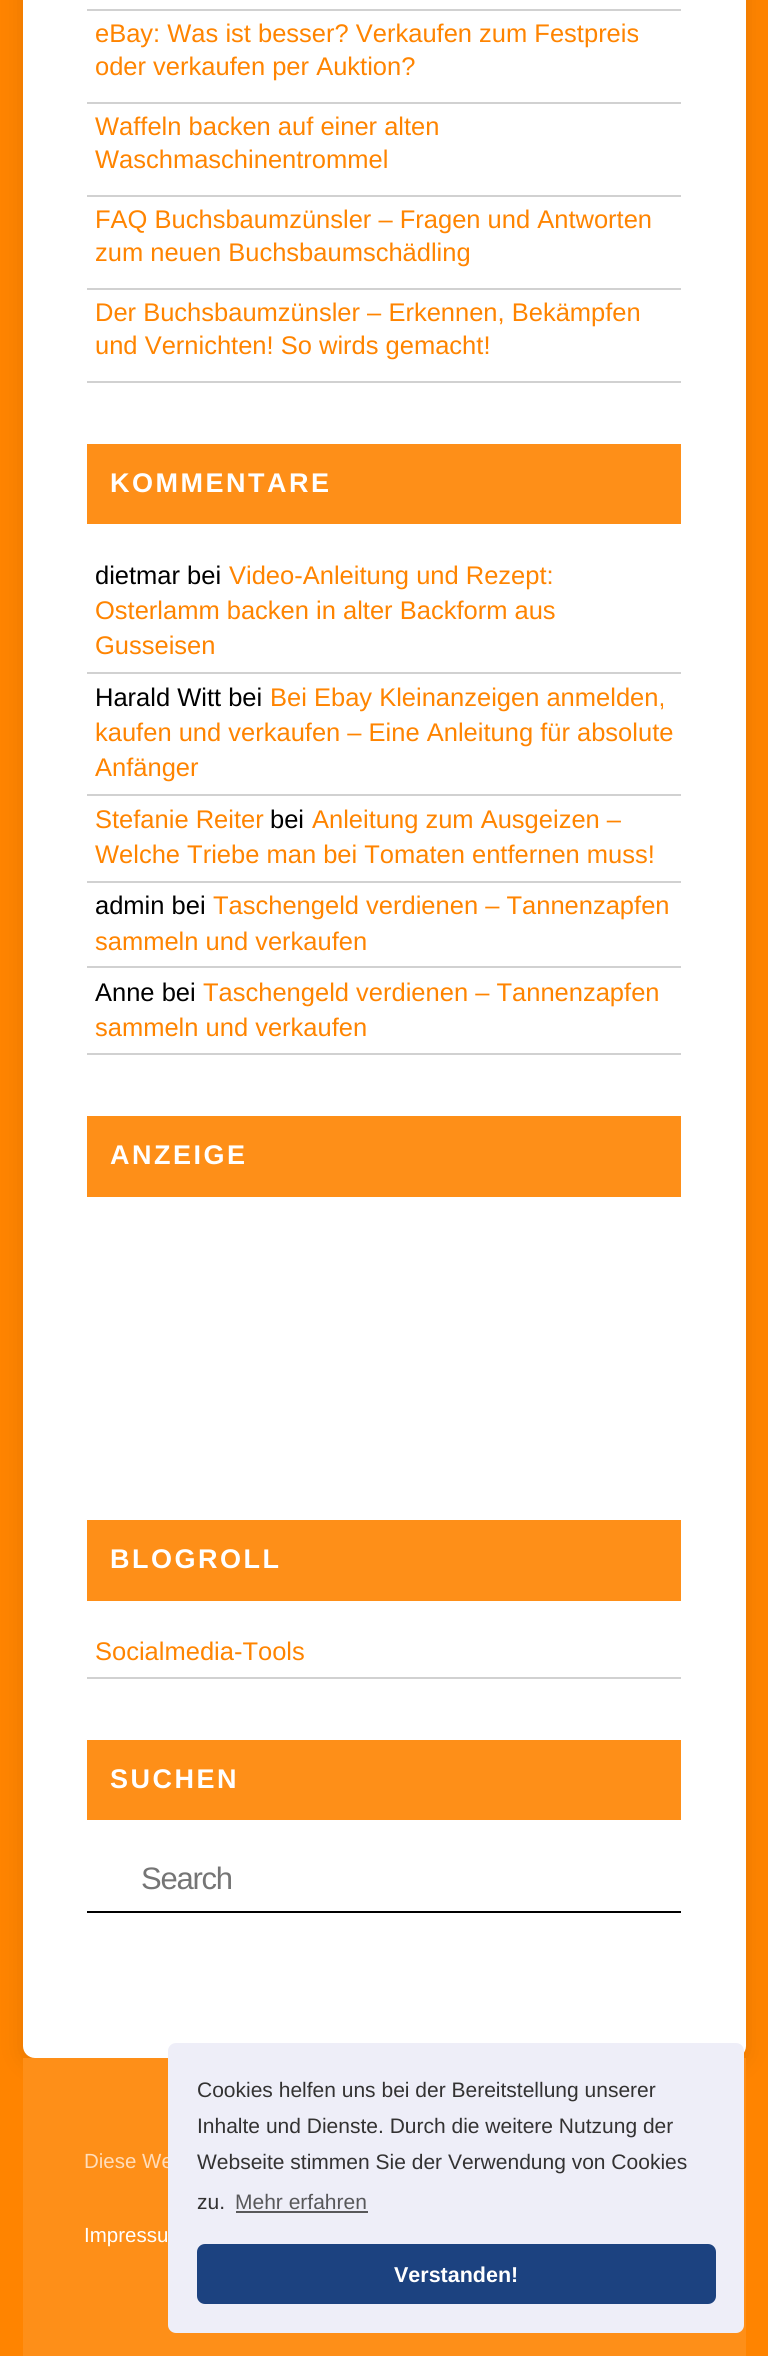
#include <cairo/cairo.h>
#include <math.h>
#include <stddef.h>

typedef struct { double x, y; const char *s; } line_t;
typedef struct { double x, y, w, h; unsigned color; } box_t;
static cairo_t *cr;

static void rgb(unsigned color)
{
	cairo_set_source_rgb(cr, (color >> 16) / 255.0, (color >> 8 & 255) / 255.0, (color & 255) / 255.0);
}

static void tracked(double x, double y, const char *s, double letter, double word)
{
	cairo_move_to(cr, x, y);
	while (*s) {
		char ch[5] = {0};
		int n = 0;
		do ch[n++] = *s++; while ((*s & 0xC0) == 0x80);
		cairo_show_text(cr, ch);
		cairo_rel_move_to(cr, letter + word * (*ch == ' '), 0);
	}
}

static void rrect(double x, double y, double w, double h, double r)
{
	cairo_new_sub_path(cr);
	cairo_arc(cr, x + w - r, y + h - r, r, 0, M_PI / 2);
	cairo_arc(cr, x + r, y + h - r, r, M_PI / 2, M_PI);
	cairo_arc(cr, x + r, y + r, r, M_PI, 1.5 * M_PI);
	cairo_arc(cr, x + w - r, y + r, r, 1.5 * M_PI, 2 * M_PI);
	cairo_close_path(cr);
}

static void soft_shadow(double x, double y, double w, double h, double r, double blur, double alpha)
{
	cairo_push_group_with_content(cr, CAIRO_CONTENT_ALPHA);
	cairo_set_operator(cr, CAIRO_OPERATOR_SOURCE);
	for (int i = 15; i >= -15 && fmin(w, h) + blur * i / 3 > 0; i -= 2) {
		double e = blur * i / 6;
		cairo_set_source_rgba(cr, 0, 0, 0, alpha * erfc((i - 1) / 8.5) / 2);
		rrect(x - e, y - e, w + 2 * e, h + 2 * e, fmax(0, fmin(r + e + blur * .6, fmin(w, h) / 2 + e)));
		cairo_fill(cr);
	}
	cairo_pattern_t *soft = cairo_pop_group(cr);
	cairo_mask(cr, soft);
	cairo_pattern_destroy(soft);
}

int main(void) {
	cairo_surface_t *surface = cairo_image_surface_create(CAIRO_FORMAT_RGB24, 768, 2356);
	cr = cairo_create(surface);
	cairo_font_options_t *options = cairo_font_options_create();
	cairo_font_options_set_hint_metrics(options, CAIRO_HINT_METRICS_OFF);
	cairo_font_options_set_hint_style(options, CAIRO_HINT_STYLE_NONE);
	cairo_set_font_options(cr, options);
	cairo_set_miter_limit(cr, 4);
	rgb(0xff8400);
	cairo_paint(cr);
	rgb(0x000000);
	soft_shadow(23, -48, 723, 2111, 12, 12, 0.1);
	rgb(0xffffff);
	rrect(23, -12, 723, 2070, 12);
	cairo_fill(cr);
	{
		static const box_t items[] = {
			{87, 9, 594, 2, 0xd1d1d1},
			{87, 102, 594, 2, 0xd1d1d1},
			{87, 195, 594, 2, 0xd1d1d1},
			{87, 288, 594, 2, 0xd1d1d1},
			{87, 381, 594, 2, 0xd1d1d1},
			{87, 444, 594, 80, 0xfe8f18},
			{87, 672, 594, 2, 0xd1d1d1},
			{87, 794, 594, 2, 0xd1d1d1},
			{87, 881, 594, 2, 0xd1d1d1},
			{87, 966, 594, 2, 0xd1d1d1},
			{87, 1053, 594, 2, 0xd1d1d1},
			{87, 1116, 594, 81, 0xfe8f18},
			{87, 1520, 594, 81, 0xfe8f18},
			{87, 1677, 594, 2, 0xd1d1d1},
			{87, 1740, 594, 80, 0xfe8f18},
			{87, 1911, 594, 2, 0x000000},
			{23, 2058, 723, 298, 0xfe8f18},
		};
		for (size_t i = 0; i < sizeof items / sizeof *items; i++) {
			rgb(items[i].color);
			cairo_rectangle(cr, items[i].x, items[i].y, items[i].w, items[i].h);
			cairo_fill(cr);
		}
	}
	cairo_select_font_face(cr, "Liberation Sans", CAIRO_FONT_SLANT_NORMAL, CAIRO_FONT_WEIGHT_NORMAL);
	cairo_set_font_size(cr, 25.5);
	rgb(0xff8400);
	{
		static const line_t items[] = {
			{95, 42, "eBay: Was ist besser? Verkaufen zum Festpreis"},
			{95, 75, "oder verkaufen per Auktion?"},
			{95, 135, "Waffeln backen auf einer alten"},
			{95, 168, "Waschmaschinentrommel"},
			{95, 228, "FAQ Buchsbaumzünsler – Fragen und Antworten"},
			{95, 261, "zum neuen Buchsbaumschädling"},
			{95, 321, "Der Buchsbaumzünsler – Erkennen, Bekämpfen"},
			{95, 354, "und Vernichten! So wirds gemacht!"},
		};
		for (size_t i = 0; i < sizeof items / sizeof *items; i++) {
			cairo_move_to(cr, items[i].x, items[i].y);
			cairo_show_text(cr, items[i].s);
		}
	}
	cairo_select_font_face(cr, "Liberation Sans", CAIRO_FONT_SLANT_NORMAL, CAIRO_FONT_WEIGHT_BOLD);
	cairo_set_font_size(cr, 27);
	rgb(0xffffff);
	tracked(110, 492, "KOMMENTARE", 2.5, 0);
	cairo_select_font_face(cr, "Liberation Sans", CAIRO_FONT_SLANT_NORMAL, CAIRO_FONT_WEIGHT_NORMAL);
	cairo_set_font_size(cr, 25.5);
	rgb(0x000000);
	cairo_move_to(cr, 95, 584);
	cairo_show_text(cr, "dietmar bei");
	rgb(0xff8400);
	{
		static const line_t items[] = {
			{229, 584, "Video-Anleitung und Rezept:"},
			{95, 619, "Osterlamm backen in alter Backform aus"},
			{95, 654, "Gusseisen"},
		};
		for (size_t i = 0; i < sizeof items / sizeof *items; i++) {
			cairo_move_to(cr, items[i].x, items[i].y);
			cairo_show_text(cr, items[i].s);
		}
	}
	rgb(0x000000);
	cairo_move_to(cr, 95, 706);
	cairo_show_text(cr, "Harald Witt bei");
	rgb(0xff8400);
	{
		static const line_t items[] = {
			{270, 706, "Bei Ebay Kleinanzeigen anmelden,"},
			{95, 741, "kaufen und verkaufen – Eine Anleitung für absolute"},
			{95, 776, "Anfänger"},
			{95, 828, "Stefanie Reiter"},
		};
		for (size_t i = 0; i < sizeof items / sizeof *items; i++) {
			cairo_move_to(cr, items[i].x, items[i].y);
			cairo_show_text(cr, items[i].s);
		}
	}
	rgb(0x000000);
	cairo_move_to(cr, 270, 828);
	cairo_show_text(cr, "bei");
	rgb(0xff8400);
	cairo_move_to(cr, 312, 828);
	cairo_show_text(cr, "Anleitung zum Ausgeizen –");
	cairo_move_to(cr, 95, 863);
	cairo_show_text(cr, "Welche Triebe man bei Tomaten entfernen muss!");
	rgb(0x000000);
	cairo_move_to(cr, 95, 914);
	cairo_show_text(cr, "admin bei");
	rgb(0xff8400);
	cairo_move_to(cr, 213, 914);
	cairo_show_text(cr, "Taschengeld verdienen – Tannenzapfen");
	cairo_move_to(cr, 95, 950);
	cairo_show_text(cr, "sammeln und verkaufen");
	rgb(0x000000);
	cairo_move_to(cr, 95, 1001);
	cairo_show_text(cr, "Anne bei");
	rgb(0xff8400);
	cairo_move_to(cr, 203, 1001);
	cairo_show_text(cr, "Taschengeld verdienen – Tannenzapfen");
	cairo_move_to(cr, 95, 1036);
	cairo_show_text(cr, "sammeln und verkaufen");
	cairo_select_font_face(cr, "Liberation Sans", CAIRO_FONT_SLANT_NORMAL, CAIRO_FONT_WEIGHT_BOLD);
	cairo_set_font_size(cr, 27);
	rgb(0xffffff);
	tracked(110, 1164, "ANZEIGE", 2.5, 0);
	tracked(110, 1568, "BLOGROLL", 2.5, 0);
	cairo_select_font_face(cr, "Liberation Sans", CAIRO_FONT_SLANT_NORMAL, CAIRO_FONT_WEIGHT_NORMAL);
	cairo_set_font_size(cr, 25.5);
	rgb(0xff8400);
	cairo_move_to(cr, 95, 1660);
	cairo_show_text(cr, "Socialmedia-Tools");
	cairo_select_font_face(cr, "Liberation Sans", CAIRO_FONT_SLANT_NORMAL, CAIRO_FONT_WEIGHT_BOLD);
	cairo_set_font_size(cr, 27);
	rgb(0xffffff);
	tracked(110, 1788, "SUCHEN", 2.5, 0);
	cairo_select_font_face(cr, "Liberation Sans", CAIRO_FONT_SLANT_NORMAL, CAIRO_FONT_WEIGHT_NORMAL);
	cairo_set_font_size(cr, 31);
	rgb(0x757575);
	tracked(141, 1889, "Search", -1.25, 0);
	cairo_set_font_size(cr, 20.5);
	rgb(0xffddba);
	cairo_move_to(cr, 84, 2168);
	cairo_show_text(cr, "Diese We");
	rgb(0xffffff);
	cairo_move_to(cr, 84, 2242);
	cairo_show_text(cr, "Impressu");
	rgb(0xeeeef8);
	rrect(168, 2043, 576, 290, 8);
	cairo_fill(cr);
	cairo_set_font_size(cr, 21);
	rgb(0x333232);
	{
		static const line_t items[] = {
			{197, 2097, "Cookies helfen uns bei der Bereitstellung unserer"},
			{197, 2133, "Inhalte und Dienste. Durch die weitere Nutzung der"},
			{197, 2169, "Webseite stimmen Sie der Verwendung von Cookies"},
			{197, 2209, "zu."},
		};
		for (size_t i = 0; i < sizeof items / sizeof *items; i++) {
			cairo_move_to(cr, items[i].x, items[i].y);
			cairo_show_text(cr, items[i].s);
		}
	}
	rgb(0x58585a);
	cairo_move_to(cr, 235, 2209);
	cairo_show_text(cr, "Mehr erfahren");
	cairo_rectangle(cr, 236, 2211, 132, 2);
	cairo_fill(cr);
	rgb(0x1c4280);
	rrect(197, 2244, 519, 60, 8);
	cairo_fill(cr);
	cairo_select_font_face(cr, "Liberation Sans", CAIRO_FONT_SLANT_NORMAL, CAIRO_FONT_WEIGHT_BOLD);
	cairo_set_font_size(cr, 21.5);
	rgb(0xffffff);
	cairo_move_to(cr, 394, 2282);
	cairo_show_text(cr, "Verstanden!");
	cairo_surface_write_to_png(surface, "page.png");
	cairo_font_options_destroy(options);
	cairo_destroy(cr);
	cairo_surface_destroy(surface);
	return 0;
}
